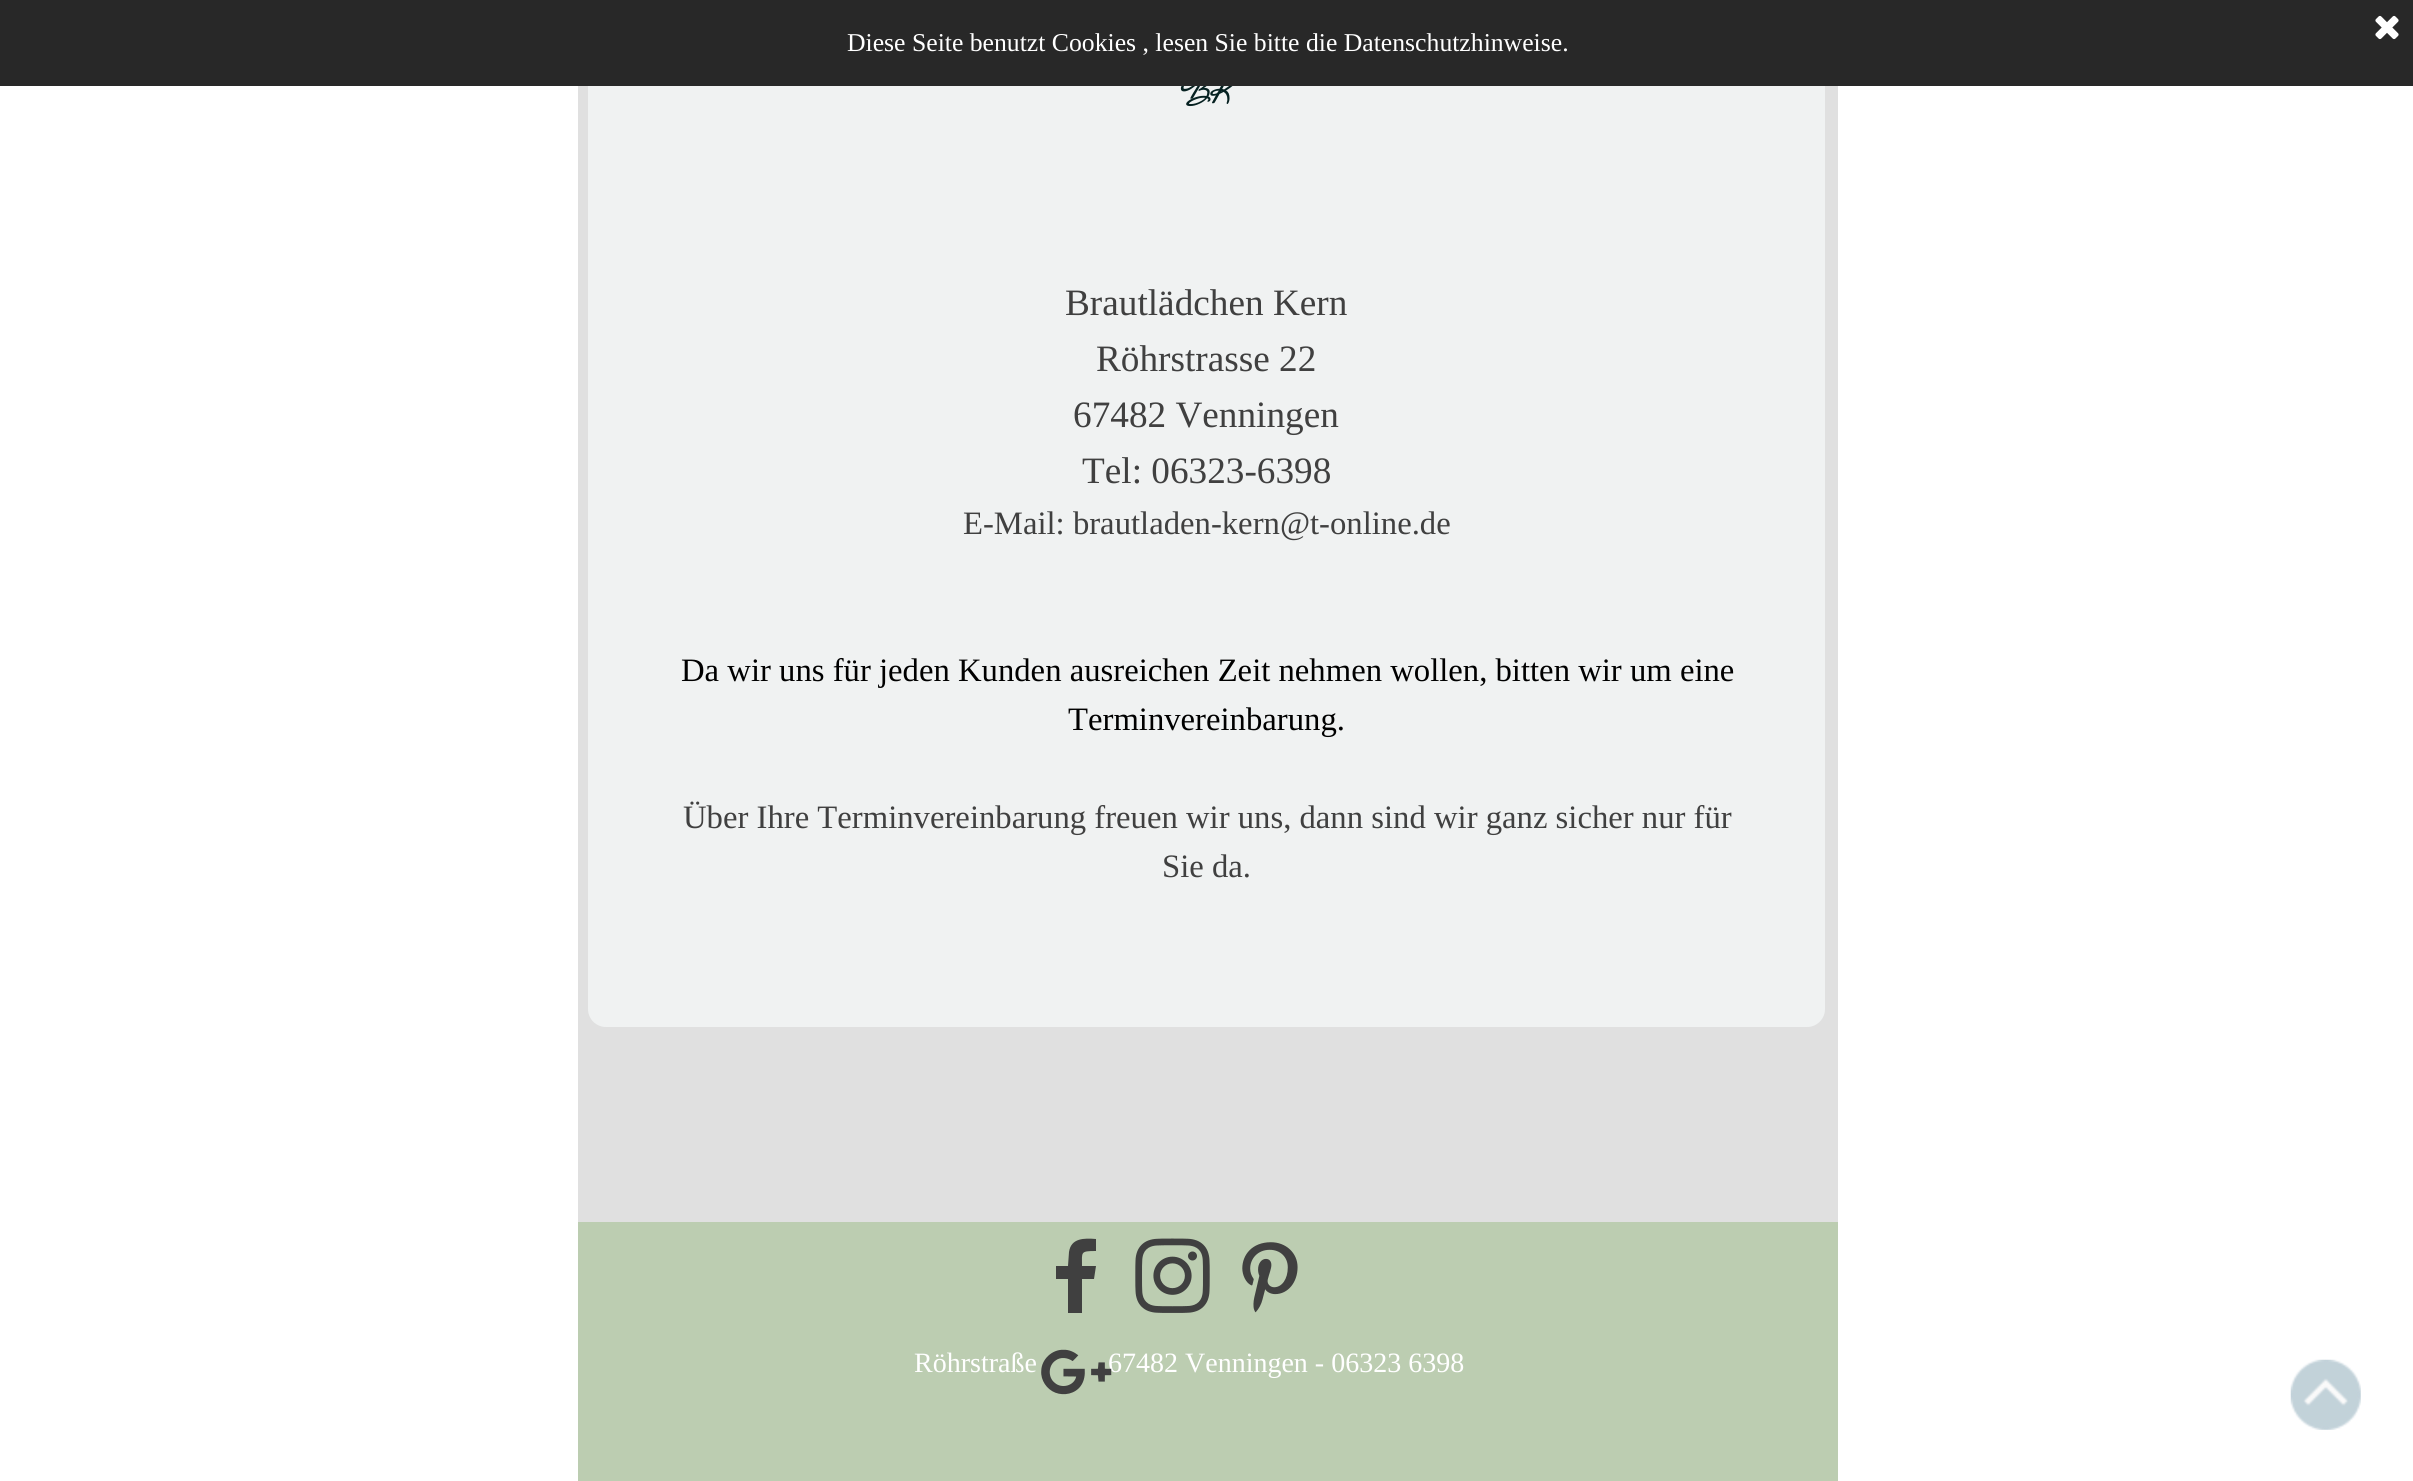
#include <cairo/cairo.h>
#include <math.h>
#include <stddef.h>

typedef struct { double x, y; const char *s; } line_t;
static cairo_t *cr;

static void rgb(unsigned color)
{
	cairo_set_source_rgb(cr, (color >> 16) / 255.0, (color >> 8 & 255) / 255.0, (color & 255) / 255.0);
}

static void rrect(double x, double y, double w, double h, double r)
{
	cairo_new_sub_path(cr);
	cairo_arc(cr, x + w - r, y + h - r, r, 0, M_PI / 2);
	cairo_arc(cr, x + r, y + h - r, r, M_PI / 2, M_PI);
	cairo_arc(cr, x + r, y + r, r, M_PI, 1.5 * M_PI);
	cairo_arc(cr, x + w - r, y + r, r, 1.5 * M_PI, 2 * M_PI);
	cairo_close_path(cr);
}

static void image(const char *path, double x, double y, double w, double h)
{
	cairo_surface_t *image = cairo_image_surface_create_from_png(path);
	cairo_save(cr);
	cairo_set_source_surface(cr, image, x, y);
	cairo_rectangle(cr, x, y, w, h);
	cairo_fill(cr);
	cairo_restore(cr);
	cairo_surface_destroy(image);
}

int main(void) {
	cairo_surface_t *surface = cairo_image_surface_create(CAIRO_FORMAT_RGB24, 2413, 1481);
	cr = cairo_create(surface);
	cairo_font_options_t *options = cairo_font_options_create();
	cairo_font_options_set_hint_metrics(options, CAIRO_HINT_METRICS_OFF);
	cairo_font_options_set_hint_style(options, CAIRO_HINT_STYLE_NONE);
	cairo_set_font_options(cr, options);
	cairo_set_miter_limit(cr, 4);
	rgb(0xffffff);
	cairo_paint(cr);
	rgb(0xe0e0e0);
	cairo_rectangle(cr, 578, 86, 1260, 1136);
	cairo_fill(cr);
	rgb(0xf0f2f2);
	rrect(588, -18, 1237, 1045, 18);
	cairo_fill(cr);
	rgb(0xbccdb1);
	cairo_rectangle(cr, 578, 1222, 1260, 259);
	cairo_fill(cr);
	rgb(0x404040);
	cairo_new_path(cr);
	cairo_move_to(cr, 1082, 1313);
	cairo_line_to(cr, 1082, 1279);
	cairo_line_to(cr, 1094, 1279);
	cairo_line_to(cr, 1096, 1266);
	cairo_line_to(cr, 1082, 1266);
	cairo_curve_to(cr, 1082, 1252, 1080, 1251, 1096, 1251);
	cairo_line_to(cr, 1096, 1239);
	cairo_curve_to(cr, 1084, 1238, 1071, 1238, 1069, 1252);
	cairo_line_to(cr, 1068, 1266);
	cairo_line_to(cr, 1056, 1266);
	cairo_line_to(cr, 1056, 1279);
	cairo_line_to(cr, 1068, 1279);
	cairo_line_to(cr, 1068, 1313);
	cairo_close_path(cr);
	cairo_fill(cr);
	image("img/2.png", 1135, 1238, 75, 75);
	image("img/3.png", 1242, 1242, 56, 71);
	image("img/5.png", 2290, 1359, 71, 71);
	cairo_select_font_face(cr, "Mr De Haviland", CAIRO_FONT_SLANT_NORMAL, CAIRO_FONT_WEIGHT_BOLD);
	cairo_set_font_size(cr, 37.25);
	rgb(0x062121);
	cairo_move_to(cr, 1183, 103);
	cairo_show_text(cr, "BK");
	rgb(0x282828);
	cairo_rectangle(cr, 0, 0, 2413, 86);
	cairo_fill(cr);
	image("img/1.png", 2375, 15, 24, 25);
	cairo_select_font_face(cr, "Liberation Serif", CAIRO_FONT_SLANT_NORMAL, CAIRO_FONT_WEIGHT_NORMAL);
	cairo_set_font_size(cr, 25.7);
	rgb(0xffffff);
	cairo_move_to(cr, 847, 51);
	cairo_show_text(cr, "Diese Seite benutzt Cookies , lesen Sie bitte die Datenschutzhinweise.");
	cairo_set_font_size(cr, 37.25);
	rgb(0x404040);
	{
		static const line_t items[] = {
			{1065, 315, "Brautlädchen Kern"},
			{1096, 371, "Röhrstrasse 22"},
			{1073, 427, "67482 Venningen"},
			{1082, 483, "Tel: 06323-6398"},
		};
		for (size_t i = 0; i < sizeof items / sizeof *items; i++) {
			cairo_move_to(cr, items[i].x, items[i].y);
			cairo_show_text(cr, items[i].s);
		}
	}
	cairo_set_font_size(cr, 32.7);
	cairo_move_to(cr, 963, 534);
	cairo_show_text(cr, "E-Mail: brautladen-kern@t-online.de");
	rgb(0x000000);
	cairo_move_to(cr, 681, 681);
	cairo_show_text(cr, "Da wir uns für jeden Kunden ausreichen Zeit nehmen wollen, bitten wir um eine");
	cairo_move_to(cr, 1068, 730);
	cairo_show_text(cr, "Terminvereinbarung.");
	rgb(0x404040);
	cairo_move_to(cr, 683, 828);
	cairo_show_text(cr, "Über Ihre Terminvereinbarung freuen wir uns, dann sind wir ganz sicher nur für");
	cairo_move_to(cr, 1162, 877);
	cairo_show_text(cr, "Sie da.");
	cairo_set_font_size(cr, 28);
	rgb(0xffffff);
	cairo_move_to(cr, 914, 1372);
	cairo_show_text(cr, "Röhrstraße");
	cairo_move_to(cr, 1108, 1372);
	cairo_show_text(cr, "67482 Venningen - 06323 6398");
	image("img/4.png", 1041, 1349, 71, 46);
	cairo_surface_write_to_png(surface, "page.png");
	cairo_font_options_destroy(options);
	cairo_destroy(cr);
	cairo_surface_destroy(surface);
	return 0;
}
